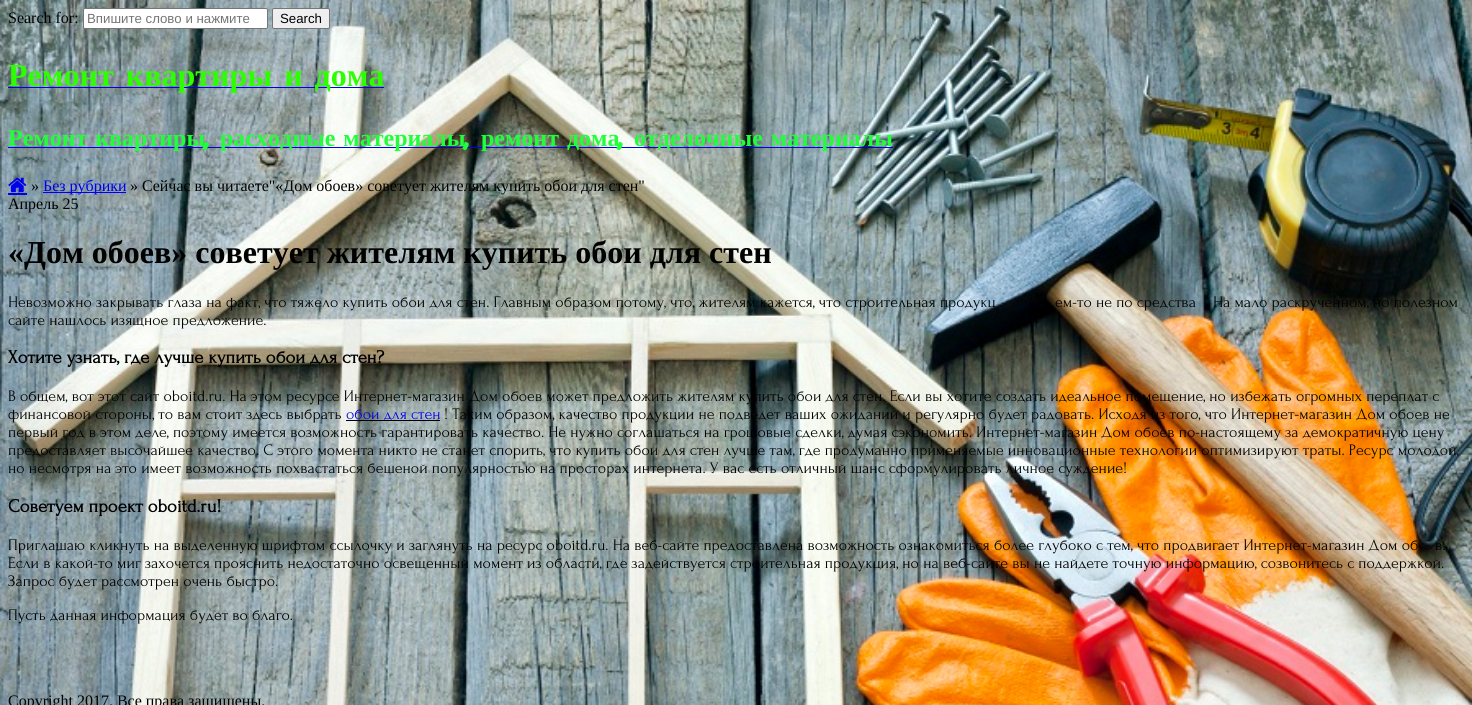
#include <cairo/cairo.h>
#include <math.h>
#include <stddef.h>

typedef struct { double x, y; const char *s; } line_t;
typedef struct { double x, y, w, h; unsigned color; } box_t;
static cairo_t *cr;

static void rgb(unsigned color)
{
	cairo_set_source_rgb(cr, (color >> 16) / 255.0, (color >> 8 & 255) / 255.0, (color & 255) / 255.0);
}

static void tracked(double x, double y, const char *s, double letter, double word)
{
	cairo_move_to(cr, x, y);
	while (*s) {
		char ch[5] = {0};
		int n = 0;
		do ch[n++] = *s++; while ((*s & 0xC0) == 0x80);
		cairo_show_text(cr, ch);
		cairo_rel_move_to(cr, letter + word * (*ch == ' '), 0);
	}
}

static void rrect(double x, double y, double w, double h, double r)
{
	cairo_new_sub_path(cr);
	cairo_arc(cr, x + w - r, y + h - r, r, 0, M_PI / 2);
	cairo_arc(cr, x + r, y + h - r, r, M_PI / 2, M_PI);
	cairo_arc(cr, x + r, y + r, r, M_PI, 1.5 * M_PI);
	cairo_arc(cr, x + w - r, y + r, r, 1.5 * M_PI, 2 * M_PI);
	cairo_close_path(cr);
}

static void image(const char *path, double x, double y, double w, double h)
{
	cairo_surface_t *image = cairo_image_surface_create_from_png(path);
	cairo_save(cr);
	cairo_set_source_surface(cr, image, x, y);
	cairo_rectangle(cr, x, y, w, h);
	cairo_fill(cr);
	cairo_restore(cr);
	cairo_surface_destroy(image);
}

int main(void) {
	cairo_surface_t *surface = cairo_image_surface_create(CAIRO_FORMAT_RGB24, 1472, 705);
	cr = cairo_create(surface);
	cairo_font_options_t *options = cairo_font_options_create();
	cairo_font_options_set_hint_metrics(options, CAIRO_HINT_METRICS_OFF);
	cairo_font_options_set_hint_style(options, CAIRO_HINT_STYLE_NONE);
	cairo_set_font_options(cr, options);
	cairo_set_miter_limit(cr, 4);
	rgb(0xffffff);
	cairo_paint(cr);
	image("img/1.png", 0, 0, 1472, 705);
	rgb(0xffffff);
	rrect(83.5, 8.5, 184, 20, 1.5);
	cairo_fill_preserve(cr);
	rgb(0x767676);
	cairo_set_line_width(cr, 1);
	cairo_stroke(cr);
	rgb(0xefefef);
	rrect(272.5, 8.5, 57, 20, 1.5);
	cairo_fill_preserve(cr);
	rgb(0x767676);
	cairo_stroke(cr);
	rgb(0x0000ee);
	cairo_rectangle(cr, 8, 87, 376, 1);
	cairo_fill(cr);
	cairo_rectangle(cr, 8, 147, 885, 1);
	cairo_fill(cr);
	image("img/2.png", 8, 177, 19, 15);
	{
		static const box_t items[] = {
			{43, 192, 83, 1, 0x0000ee},
			{8, 193, 19, 2, 0x0000ee},
			{346, 420, 94, 1, 0x000000},
		};
		for (size_t i = 0; i < sizeof items / sizeof *items; i++) {
			rgb(items[i].color);
			cairo_rectangle(cr, items[i].x, items[i].y, items[i].w, items[i].h);
			cairo_fill(cr);
		}
	}
	cairo_select_font_face(cr, "Liberation Serif", CAIRO_FONT_SLANT_NORMAL, CAIRO_FONT_WEIGHT_NORMAL);
	cairo_set_font_size(cr, 16);
	cairo_move_to(cr, 8, 23);
	cairo_show_text(cr, "Search for:");
	cairo_select_font_face(cr, "Liberation Sans", CAIRO_FONT_SLANT_NORMAL, CAIRO_FONT_WEIGHT_NORMAL);
	cairo_set_font_size(cr, 13.25);
	rgb(0x757575);
	cairo_move_to(cr, 87, 23);
	cairo_show_text(cr, "Впишите слово и нажмите");
	rgb(0x000000);
	cairo_move_to(cr, 280, 23);
	cairo_show_text(cr, "Search");
	cairo_select_font_face(cr, "Liberation Serif", CAIRO_FONT_SLANT_NORMAL, CAIRO_FONT_WEIGHT_BOLD);
	cairo_set_font_size(cr, 32);
	rgb(0x2eff00);
	tracked(8, 86, "Ремонт квартиры и дома", 0, 4);
	cairo_set_font_size(cr, 24);
	rgb(0x21ff3b);
	{
		static const line_t items[] = {
			{8, 146, "Ремонт квартиры"},
			{220, 146, "расходные материалы"},
			{481, 146, "ремонт дома"},
			{634, 146, "отделочные материалы"},
		};
		for (size_t i = 0; i < sizeof items / sizeof *items; i++) {
			tracked(items[i].x, items[i].y, items[i].s, 0, 2);
		}
	}
	cairo_select_font_face(cr, "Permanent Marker", CAIRO_FONT_SLANT_NORMAL, CAIRO_FONT_WEIGHT_BOLD);
	{
		static const line_t items[] = {
			{205, 146, ","},
			{465, 146, ","},
			{619, 146, ","},
		};
		for (size_t i = 0; i < sizeof items / sizeof *items; i++) {
			cairo_move_to(cr, items[i].x, items[i].y);
			cairo_show_text(cr, items[i].s);
		}
	}
	cairo_select_font_face(cr, "Liberation Serif", CAIRO_FONT_SLANT_NORMAL, CAIRO_FONT_WEIGHT_NORMAL);
	cairo_set_font_size(cr, 16);
	rgb(0x000000);
	cairo_move_to(cr, 31, 191);
	cairo_show_text(cr, "»");
	rgb(0x0000ee);
	cairo_move_to(cr, 43, 191);
	cairo_show_text(cr, "Без рубрики");
	rgb(0x000000);
	cairo_move_to(cr, 130, 191);
	cairo_show_text(cr, "» Сейчас вы читаете\"«Дом обоев» советует жителям купить обои для стен\"");
	cairo_move_to(cr, 8, 209);
	cairo_show_text(cr, "Апрель 25");
	cairo_select_font_face(cr, "Liberation Serif", CAIRO_FONT_SLANT_NORMAL, CAIRO_FONT_WEIGHT_BOLD);
	cairo_set_font_size(cr, 32);
	cairo_move_to(cr, 8, 263);
	cairo_show_text(cr, "«Дом обоев» советует жителям купить обои для стен");
	cairo_select_font_face(cr, "Forum", CAIRO_FONT_SLANT_NORMAL, CAIRO_FONT_WEIGHT_NORMAL);
	cairo_set_font_size(cr, 16);
	{
		static const line_t items[] = {
			{8, 307, "Невозможно закрывать глаза на факт, что тяжело купить обои для стен. Главным образом потому, что, жителям кажется, что строительная продукц"},
			{1055, 307, "ем-то не по средства"},
			{1213, 307, "На мало раскрученном, но полезном"},
			{8, 325, "сайте нашлось изящное предложение."},
		};
		for (size_t i = 0; i < sizeof items / sizeof *items; i++) {
			cairo_move_to(cr, items[i].x, items[i].y);
			cairo_show_text(cr, items[i].s);
		}
	}
	cairo_select_font_face(cr, "Forum", CAIRO_FONT_SLANT_NORMAL, CAIRO_FONT_WEIGHT_BOLD);
	cairo_set_font_size(cr, 18.75);
	cairo_move_to(cr, 8, 363);
	cairo_show_text(cr, "Хотите узнать, где лучше купить обои для стен?");
	cairo_select_font_face(cr, "Forum", CAIRO_FONT_SLANT_NORMAL, CAIRO_FONT_WEIGHT_NORMAL);
	cairo_set_font_size(cr, 16);
	cairo_move_to(cr, 8, 401);
	cairo_show_text(cr, "В общем, вот этот сайт oboitd.ru. На этом ресурсе Интернет-магазин Дом обоев может предложить жителям купить обои для стен. Если вы хотите создать идеальное помещение, но избежать огромных переплат с");
	cairo_move_to(cr, 8, 419);
	cairo_show_text(cr, "финансовой стороны, то вам стоит здесь выбрать");
	rgb(0x0000ee);
	cairo_move_to(cr, 346, 419);
	cairo_show_text(cr, "обои для стен");
	rgb(0x000000);
	{
		static const line_t items[] = {
			{444, 419, "! Таким образом, качество продукции не подведет ваших ожиданий и регулярно будет радовать. Исходя из того, что Интернет-магазин Дом обоев не"},
			{8, 437, "первый год в этом деле, поэтому имеется возможность гарантировать качество. Не нужно соглашаться на грошовые сделки, думая сэкономить. Интернет-магазин Дом обоев по-настоящему за демократичную цену"},
			{8, 455, "предоставляет высочайшее качество. С этого момента никто не станет спорить, что купить обои для стен лучше там, где продуманно применяемые инновационные технологии оптимизируют траты. Ресурс молодой,"},
			{8, 473, "но несмотря на это имеет возможность похвастаться бешеной популярностью на просторах интернета. У вас есть отличный шанс сформулировать личное суждение!"},
		};
		for (size_t i = 0; i < sizeof items / sizeof *items; i++) {
			cairo_move_to(cr, items[i].x, items[i].y);
			cairo_show_text(cr, items[i].s);
		}
	}
	cairo_select_font_face(cr, "Forum", CAIRO_FONT_SLANT_NORMAL, CAIRO_FONT_WEIGHT_BOLD);
	cairo_set_font_size(cr, 18.75);
	cairo_move_to(cr, 8, 512);
	cairo_show_text(cr, "Советуем проект oboitd.ru!");
	cairo_select_font_face(cr, "Forum", CAIRO_FONT_SLANT_NORMAL, CAIRO_FONT_WEIGHT_NORMAL);
	cairo_set_font_size(cr, 16);
	{
		static const line_t items[] = {
			{8, 550, "Приглашаю кликнуть на выделенную шрифтом ссылочку и заглянуть на ресурс oboitd.ru. На веб-сайте предоставлена возможность ознакомиться более глубоко с тем, что продвигает Интернет-магазин Дом об"},
			{1435, 550, "в."},
			{8, 568, "Если в какой-то миг захочется прояснить недостаточно освещенный момент из области, где задействуется строительная продукция, но на веб-сайте вы не найдете точную информацию, созвонитесь с поддержкой."},
			{8, 586, "Запрос будет рассмотрен очень быстро."},
			{8, 620, "Пусть данная информация будет во благо."},
		};
		for (size_t i = 0; i < sizeof items / sizeof *items; i++) {
			cairo_move_to(cr, items[i].x, items[i].y);
			cairo_show_text(cr, items[i].s);
		}
	}
	cairo_select_font_face(cr, "Liberation Serif", CAIRO_FONT_SLANT_NORMAL, CAIRO_FONT_WEIGHT_NORMAL);
	cairo_move_to(cr, 8, 706);
	cairo_show_text(cr, "Copyright 2017. Все права защищены.");
	cairo_surface_write_to_png(surface, "page.png");
	cairo_font_options_destroy(options);
	cairo_destroy(cr);
	cairo_surface_destroy(surface);
	return 0;
}
